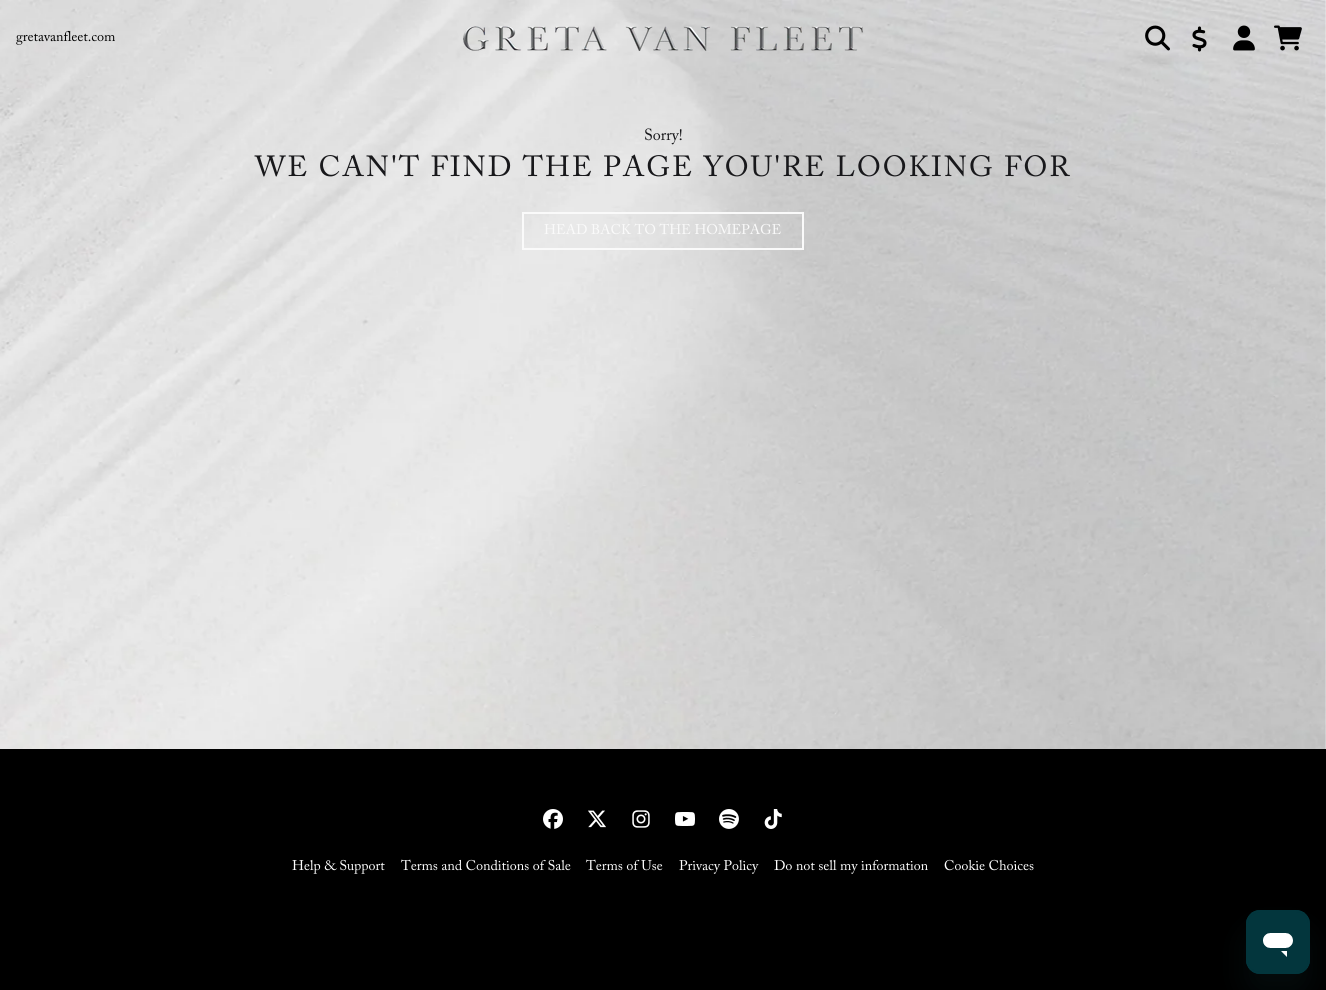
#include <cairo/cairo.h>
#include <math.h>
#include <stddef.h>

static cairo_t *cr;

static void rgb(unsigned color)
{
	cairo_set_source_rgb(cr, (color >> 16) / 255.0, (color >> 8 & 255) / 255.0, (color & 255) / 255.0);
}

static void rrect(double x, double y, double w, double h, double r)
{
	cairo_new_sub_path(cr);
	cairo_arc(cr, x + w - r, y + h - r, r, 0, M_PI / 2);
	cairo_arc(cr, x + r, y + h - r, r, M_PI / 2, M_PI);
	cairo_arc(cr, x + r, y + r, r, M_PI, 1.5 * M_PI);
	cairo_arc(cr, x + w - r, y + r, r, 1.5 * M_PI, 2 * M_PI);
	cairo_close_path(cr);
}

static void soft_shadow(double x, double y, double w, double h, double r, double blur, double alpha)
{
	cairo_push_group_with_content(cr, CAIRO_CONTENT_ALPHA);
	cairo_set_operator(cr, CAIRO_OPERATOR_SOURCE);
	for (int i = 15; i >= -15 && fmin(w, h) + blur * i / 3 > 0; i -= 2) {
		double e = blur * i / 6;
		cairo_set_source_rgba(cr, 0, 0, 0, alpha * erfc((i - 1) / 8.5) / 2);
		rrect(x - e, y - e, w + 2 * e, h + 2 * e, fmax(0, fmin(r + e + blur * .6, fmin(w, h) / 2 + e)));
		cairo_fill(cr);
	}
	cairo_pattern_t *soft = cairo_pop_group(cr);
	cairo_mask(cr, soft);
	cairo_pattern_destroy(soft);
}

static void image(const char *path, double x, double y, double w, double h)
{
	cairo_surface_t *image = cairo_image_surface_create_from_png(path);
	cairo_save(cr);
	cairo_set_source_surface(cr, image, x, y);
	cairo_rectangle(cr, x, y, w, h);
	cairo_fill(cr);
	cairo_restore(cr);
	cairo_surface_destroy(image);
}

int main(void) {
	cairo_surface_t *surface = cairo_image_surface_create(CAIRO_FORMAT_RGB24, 1326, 990);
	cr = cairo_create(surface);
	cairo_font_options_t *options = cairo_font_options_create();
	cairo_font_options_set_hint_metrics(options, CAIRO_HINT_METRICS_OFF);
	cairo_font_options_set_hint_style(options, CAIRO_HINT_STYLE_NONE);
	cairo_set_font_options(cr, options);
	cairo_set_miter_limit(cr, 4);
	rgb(0xffffff);
	cairo_paint(cr);
	image("img/1.png", 0, 0, 1326, 749);
	image("img/2.png", 16, 30, 99, 15);
	image("img/3.png", 463, 26, 400, 25);
	image("img/4.png", 1145, 25, 25, 26);
	image("img/5.png", 1192, 26, 15, 26);
	image("img/6.png", 1233, 25, 22, 26);
	image("img/7.png", 1274, 25, 28, 26);
	image("img/8.png", 645, 128, 37, 17);
	image("img/9.png", 254, 154, 816, 23);
	cairo_rectangle(cr, 523, 213, 280, 36);
	rgb(0xfafafa);
	cairo_stroke(cr);
	image("img/10.png", 544, 223, 237, 12);
	rgb(0x000000);
	cairo_rectangle(cr, 0, 749, 1326, 241);
	cairo_fill(cr);
	image("img/11.png", 543, 809, 20, 20);
	image("img/12.png", 588, 810, 18, 18);
	image("img/13.png", 632, 810, 18, 18);
	image("img/14.png", 675, 812, 20, 14);
	image("img/15.png", 719, 809, 20, 20);
	image("img/16.png", 764, 809, 18, 20);
	image("img/17.png", 292, 859, 93, 15);
	image("img/18.png", 400, 859, 171, 12);
	image("img/19.png", 585, 859, 78, 12);
	image("img/20.png", 679, 859, 80, 15);
	image("img/21.png", 774, 859, 154, 15);
	image("img/22.png", 944, 859, 90, 12);
	rgb(0x17494d);
	soft_shadow(1246, 930, 64, 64, 14, 15, 0.15);
	image("img/23.png", 1246, 910, 64, 64);
	cairo_surface_write_to_png(surface, "page.png");
	cairo_font_options_destroy(options);
	cairo_destroy(cr);
	cairo_surface_destroy(surface);
	return 0;
}
